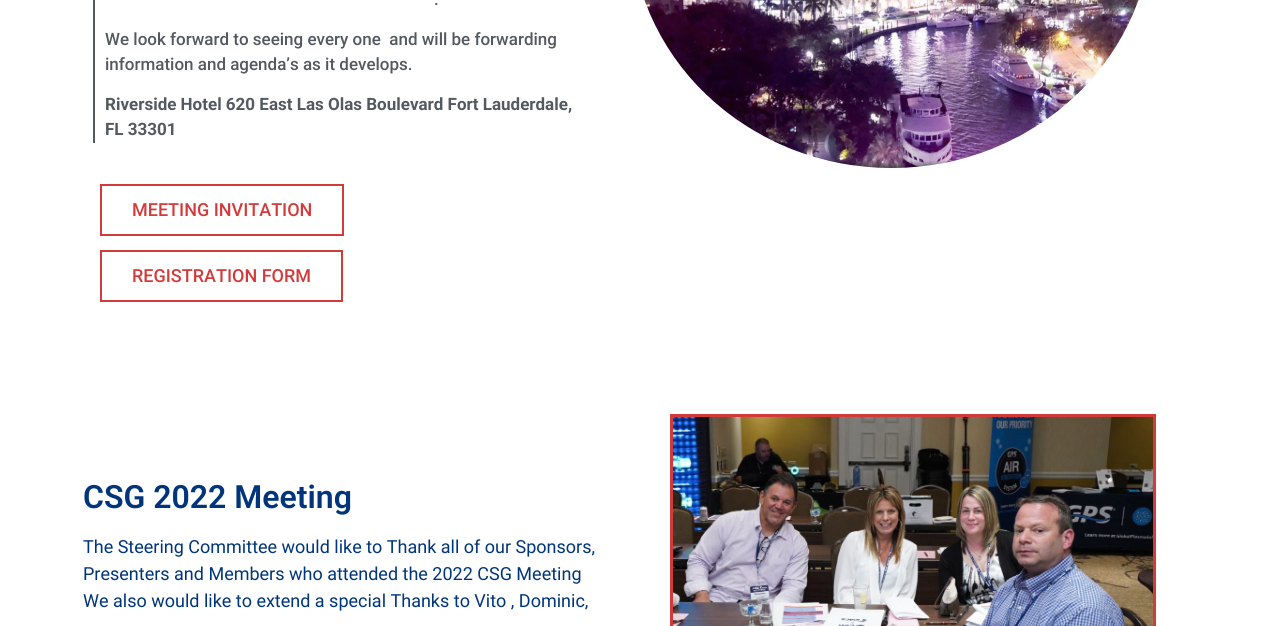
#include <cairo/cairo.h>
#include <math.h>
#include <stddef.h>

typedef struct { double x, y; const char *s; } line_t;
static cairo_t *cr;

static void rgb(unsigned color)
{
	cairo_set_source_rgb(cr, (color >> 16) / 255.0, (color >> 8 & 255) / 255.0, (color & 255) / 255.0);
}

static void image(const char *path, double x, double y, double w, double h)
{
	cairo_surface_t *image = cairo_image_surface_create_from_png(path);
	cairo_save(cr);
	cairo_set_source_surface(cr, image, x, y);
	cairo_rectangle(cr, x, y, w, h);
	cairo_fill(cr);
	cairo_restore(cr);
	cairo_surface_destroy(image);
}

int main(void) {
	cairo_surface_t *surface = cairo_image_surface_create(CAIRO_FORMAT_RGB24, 1265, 626);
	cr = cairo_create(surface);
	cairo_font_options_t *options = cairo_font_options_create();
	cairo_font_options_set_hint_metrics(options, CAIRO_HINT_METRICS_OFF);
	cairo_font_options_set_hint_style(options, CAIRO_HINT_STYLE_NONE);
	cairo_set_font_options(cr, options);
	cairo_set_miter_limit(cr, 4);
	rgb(0xffffff);
	cairo_paint(cr);
	rgb(0x54595f);
	cairo_rectangle(cr, 93, 0, 2, 143);
	cairo_fill(cr);
	cairo_rectangle(cr, 101, 185, 242, 50);
	rgb(0xd33b3b);
	cairo_stroke(cr);
	cairo_rectangle(cr, 101, 251, 241, 50);
	cairo_stroke(cr);
	image("img/1.png", 644, 0, 495, 168);
	cairo_rectangle(cr, 671.5, 415.5, 483, 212);
	cairo_set_line_width(cr, 3);
	cairo_stroke(cr);
	image("img/2.png", 673, 417, 480, 209);
	cairo_select_font_face(cr, "Roboto Medium", CAIRO_FONT_SLANT_NORMAL, CAIRO_FONT_WEIGHT_NORMAL);
	cairo_set_font_size(cr, 17);
	rgb(0x54595f);
	{
		static const line_t items[] = {
			{434, 5, "."},
			{105, 45, "We look forward to seeing every one  and will be forwarding"},
			{105, 70, "information and agenda’s as it develops."},
		};
		for (size_t i = 0; i < sizeof items / sizeof *items; i++) {
			cairo_move_to(cr, items[i].x, items[i].y);
			cairo_show_text(cr, items[i].s);
		}
	}
	cairo_select_font_face(cr, "Roboto", CAIRO_FONT_SLANT_NORMAL, CAIRO_FONT_WEIGHT_BOLD);
	cairo_move_to(cr, 105, 110);
	cairo_show_text(cr, "Riverside Hotel 620 East Las Olas Boulevard Fort Lauderdale,");
	cairo_move_to(cr, 105, 135);
	cairo_show_text(cr, "FL 33301");
	cairo_select_font_face(cr, "Roboto Medium", CAIRO_FONT_SLANT_NORMAL, CAIRO_FONT_WEIGHT_NORMAL);
	cairo_set_font_size(cr, 18);
	rgb(0xd33b3b);
	cairo_move_to(cr, 132, 216);
	cairo_show_text(cr, "MEETING INVITATION");
	cairo_move_to(cr, 132, 282);
	cairo_show_text(cr, "REGISTRATION FORM");
	cairo_select_font_face(cr, "Roboto SemiBold", CAIRO_FONT_SLANT_NORMAL, CAIRO_FONT_WEIGHT_NORMAL);
	cairo_set_font_size(cr, 32);
	rgb(0x00357b);
	cairo_move_to(cr, 83, 508);
	cairo_show_text(cr, "CSG 2022 Meeting");
	cairo_select_font_face(cr, "Roboto", CAIRO_FONT_SLANT_NORMAL, CAIRO_FONT_WEIGHT_NORMAL);
	cairo_set_font_size(cr, 18);
	{
		static const line_t items[] = {
			{83, 553, "The Steering Committee would like to Thank all of our Sponsors,"},
			{83, 580, "Presenters and Members who attended the 2022 CSG Meeting"},
			{83, 607, "We also would like to extend a special Thanks to Vito , Dominic,"},
		};
		for (size_t i = 0; i < sizeof items / sizeof *items; i++) {
			cairo_move_to(cr, items[i].x, items[i].y);
			cairo_show_text(cr, items[i].s);
		}
	}
	cairo_surface_write_to_png(surface, "page.png");
	cairo_font_options_destroy(options);
	cairo_destroy(cr);
	cairo_surface_destroy(surface);
	return 0;
}
